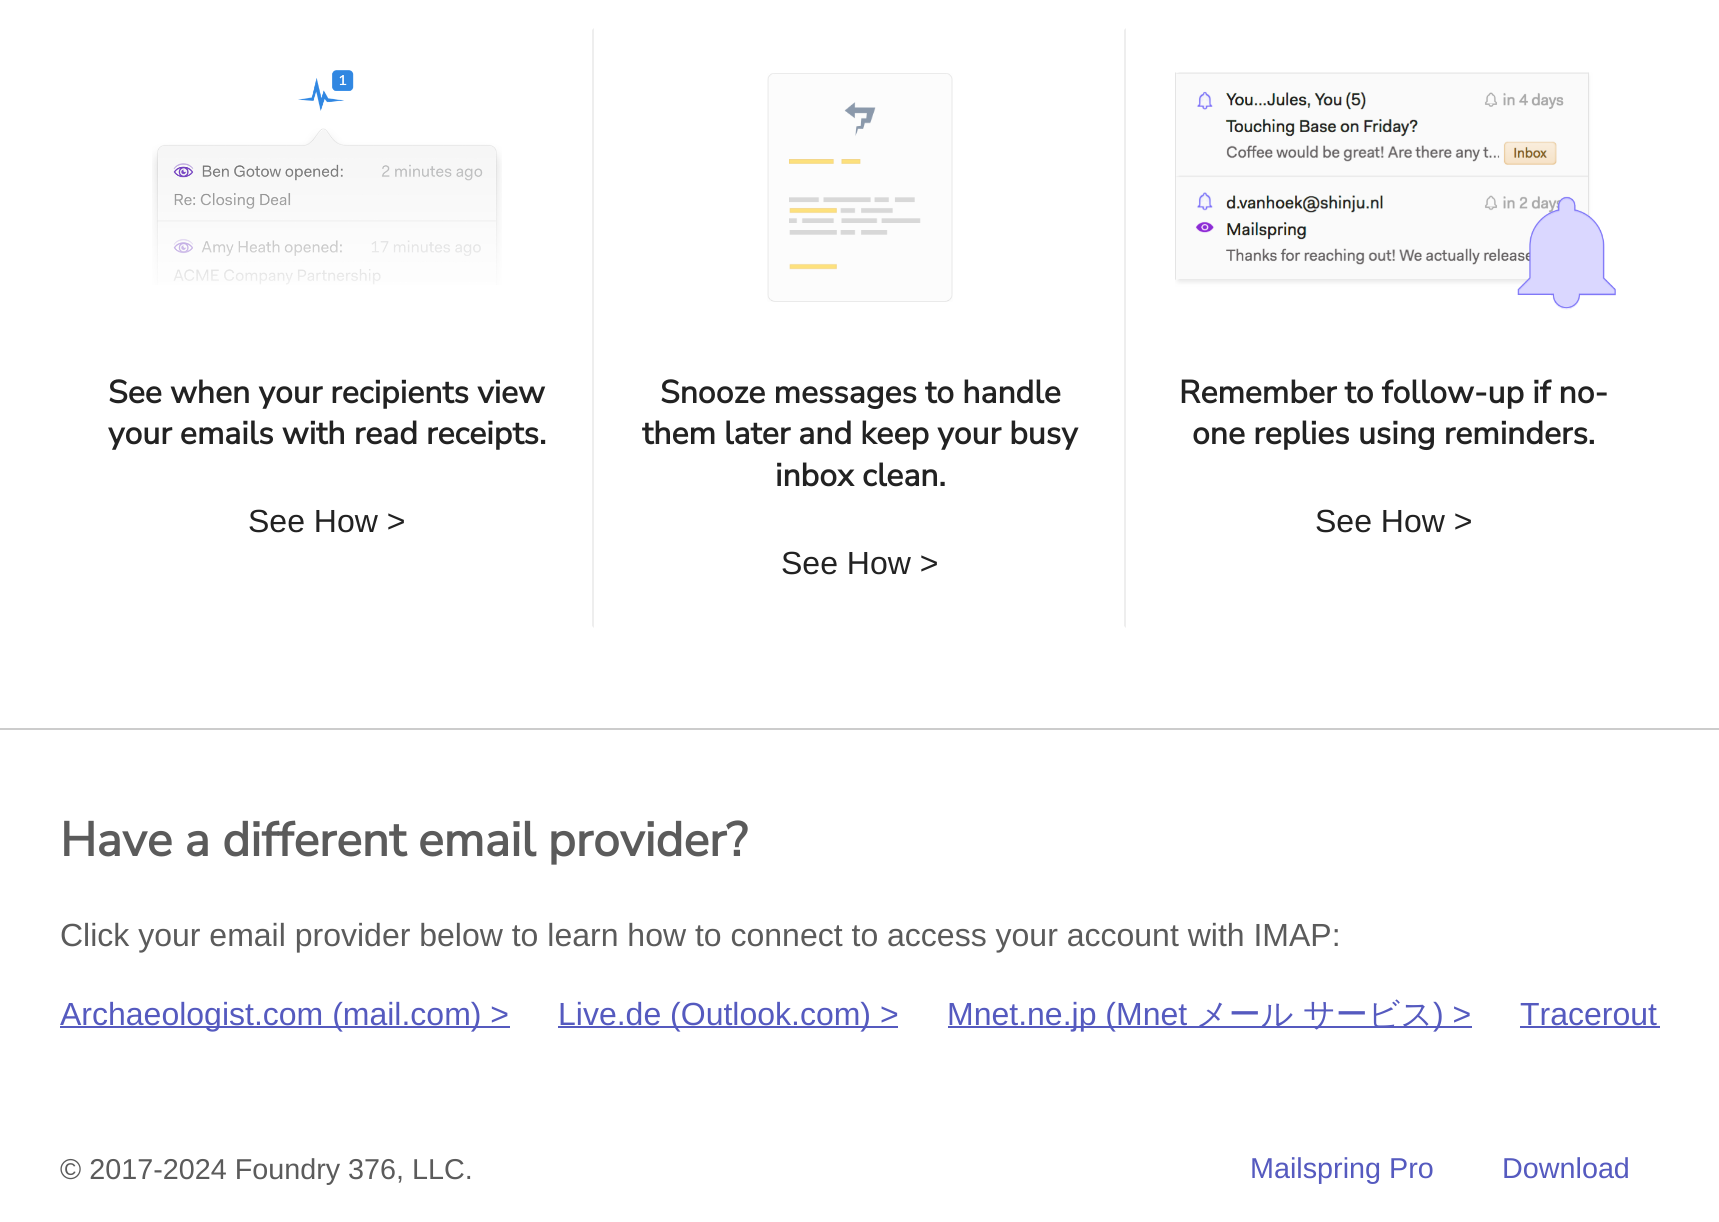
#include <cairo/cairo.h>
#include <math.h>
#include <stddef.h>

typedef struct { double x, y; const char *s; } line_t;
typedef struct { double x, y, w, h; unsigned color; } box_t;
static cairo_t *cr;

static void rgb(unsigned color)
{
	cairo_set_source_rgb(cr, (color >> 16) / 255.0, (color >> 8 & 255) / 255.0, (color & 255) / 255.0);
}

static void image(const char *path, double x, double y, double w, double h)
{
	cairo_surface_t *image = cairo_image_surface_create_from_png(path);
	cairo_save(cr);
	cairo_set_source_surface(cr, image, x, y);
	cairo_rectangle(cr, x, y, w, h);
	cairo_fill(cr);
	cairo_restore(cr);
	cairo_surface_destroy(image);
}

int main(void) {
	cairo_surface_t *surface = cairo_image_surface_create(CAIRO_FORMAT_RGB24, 1719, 1222);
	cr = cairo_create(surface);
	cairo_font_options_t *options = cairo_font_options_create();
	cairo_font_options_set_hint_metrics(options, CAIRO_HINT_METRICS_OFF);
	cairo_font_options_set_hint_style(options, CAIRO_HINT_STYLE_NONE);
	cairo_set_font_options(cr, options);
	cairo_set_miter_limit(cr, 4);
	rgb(0xffffff);
	cairo_paint(cr);
	rgb(0xcccccc);
	cairo_rectangle(cr, 0, 728, 1719, 2);
	cairo_fill(cr);
	rgb(0xeeeeee);
	cairo_new_path(cr);
	cairo_move_to(cr, 594, 28);
	cairo_line_to(cr, 594, 628);
	cairo_line_to(cr, 592, 626);
	cairo_line_to(cr, 592, 30);
	cairo_close_path(cr);
	cairo_fill(cr);
	image("img/1.png", 152, 70, 350, 215);
	cairo_new_path(cr);
	cairo_move_to(cr, 1126, 28);
	cairo_line_to(cr, 1126, 628);
	cairo_line_to(cr, 1124, 626);
	cairo_line_to(cr, 1124, 30);
	cairo_close_path(cr);
	cairo_fill(cr);
	image("img/2.png", 767, 73, 186, 229);
	image("img/3.png", 1175, 72, 441, 238);
	{
		static const box_t items[] = {
			{60, 1026, 450, 2, 0x555abf},
			{558, 1026, 340, 2, 0x555abf},
			{948, 1026, 524, 2, 0x555abf},
			{1520, 1026, 140, 2, 0x555abf},
		};
		for (size_t i = 0; i < sizeof items / sizeof *items; i++) {
			rgb(items[i].color);
			cairo_rectangle(cr, items[i].x, items[i].y, items[i].w, items[i].h);
			cairo_fill(cr);
		}
	}
	cairo_select_font_face(cr, "Nunito Sans", CAIRO_FONT_SLANT_NORMAL, CAIRO_FONT_WEIGHT_BOLD);
	cairo_set_font_size(cr, 32);
	rgb(0x222222);
	cairo_move_to(cr, 108, 403);
	cairo_show_text(cr, "See when your recipients view");
	cairo_move_to(cr, 108, 444);
	cairo_show_text(cr, "your emails with read receipts.");
	cairo_select_font_face(cr, "Liberation Sans", CAIRO_FONT_SLANT_NORMAL, CAIRO_FONT_WEIGHT_NORMAL);
	cairo_move_to(cr, 248, 532);
	cairo_show_text(cr, "See How >");
	cairo_select_font_face(cr, "Nunito Sans", CAIRO_FONT_SLANT_NORMAL, CAIRO_FONT_WEIGHT_BOLD);
	{
		static const line_t items[] = {
			{660, 403, "Snooze messages to handle"},
			{642, 444, "them later and keep your busy"},
			{775, 486, "inbox clean."},
		};
		for (size_t i = 0; i < sizeof items / sizeof *items; i++) {
			cairo_move_to(cr, items[i].x, items[i].y);
			cairo_show_text(cr, items[i].s);
		}
	}
	cairo_select_font_face(cr, "Liberation Sans", CAIRO_FONT_SLANT_NORMAL, CAIRO_FONT_WEIGHT_NORMAL);
	cairo_move_to(cr, 781, 574);
	cairo_show_text(cr, "See How >");
	cairo_select_font_face(cr, "Nunito Sans", CAIRO_FONT_SLANT_NORMAL, CAIRO_FONT_WEIGHT_BOLD);
	cairo_move_to(cr, 1179, 403);
	cairo_show_text(cr, "Remember to follow-up if no-");
	cairo_move_to(cr, 1192, 444);
	cairo_show_text(cr, "one replies using reminders.");
	cairo_select_font_face(cr, "Liberation Sans", CAIRO_FONT_SLANT_NORMAL, CAIRO_FONT_WEIGHT_NORMAL);
	cairo_move_to(cr, 1315, 532);
	cairo_show_text(cr, "See How >");
	cairo_select_font_face(cr, "Nunito Sans", CAIRO_FONT_SLANT_NORMAL, CAIRO_FONT_WEIGHT_BOLD);
	cairo_set_font_size(cr, 48);
	rgb(0x5b5b5b);
	cairo_move_to(cr, 60, 856);
	cairo_show_text(cr, "Have a different email provider?");
	cairo_select_font_face(cr, "Liberation Sans", CAIRO_FONT_SLANT_NORMAL, CAIRO_FONT_WEIGHT_NORMAL);
	cairo_set_font_size(cr, 32);
	cairo_move_to(cr, 60, 946);
	cairo_show_text(cr, "Click your email provider below to learn how to connect to access your account with IMAP:");
	rgb(0x555abf);
	{
		static const line_t items[] = {
			{60, 1025, "Archaeologist.com (mail.com) >"},
			{558, 1025, "Live.de (Outlook.com) >"},
			{947, 1025, "Mnet.ne.jp (Mnet"},
		};
		for (size_t i = 0; i < sizeof items / sizeof *items; i++) {
			cairo_move_to(cr, items[i].x, items[i].y);
			cairo_show_text(cr, items[i].s);
		}
	}
	cairo_select_font_face(cr, "WenQuanYi Zen Hei Medium", CAIRO_FONT_SLANT_NORMAL, CAIRO_FONT_WEIGHT_NORMAL);
	cairo_move_to(cr, 1196, 1025);
	cairo_show_text(cr, "メール");
	cairo_move_to(cr, 1303, 1025);
	cairo_show_text(cr, "サービス");
	cairo_select_font_face(cr, "Liberation Sans", CAIRO_FONT_SLANT_NORMAL, CAIRO_FONT_WEIGHT_NORMAL);
	cairo_move_to(cr, 1433, 1025);
	cairo_show_text(cr, ") >");
	cairo_move_to(cr, 1520, 1025);
	cairo_show_text(cr, "Tracerout");
	cairo_set_font_size(cr, 28.75);
	rgb(0x5b5b5b);
	cairo_move_to(cr, 60, 1179);
	cairo_show_text(cr, "© 2017-2024 Foundry 376, LLC.");
	rgb(0x555abf);
	cairo_move_to(cr, 1250, 1178);
	cairo_show_text(cr, "Mailspring Pro");
	cairo_move_to(cr, 1502, 1178);
	cairo_show_text(cr, "Download");
	cairo_surface_write_to_png(surface, "page.png");
	cairo_font_options_destroy(options);
	cairo_destroy(cr);
	cairo_surface_destroy(surface);
	return 0;
}
